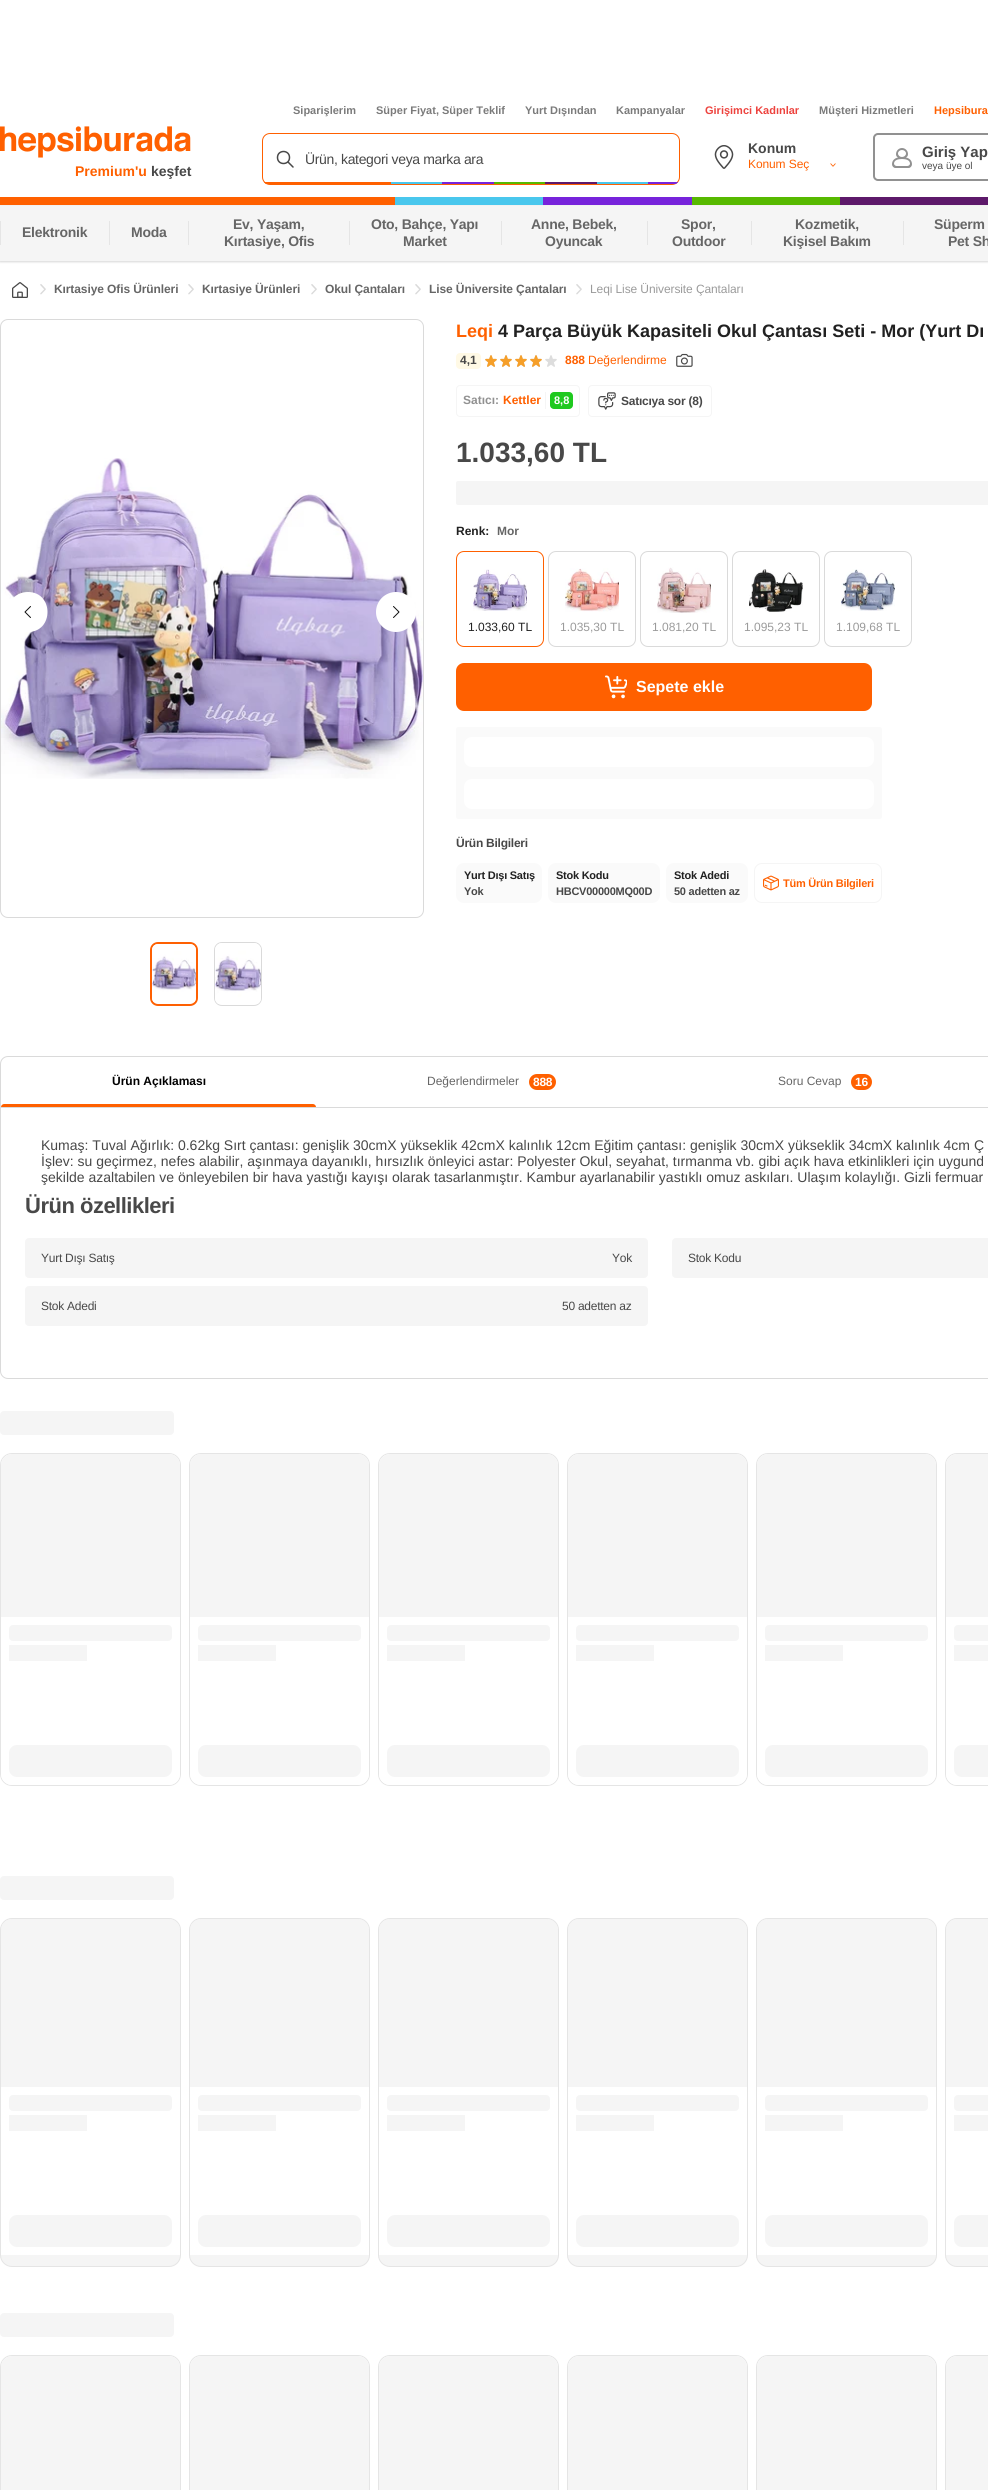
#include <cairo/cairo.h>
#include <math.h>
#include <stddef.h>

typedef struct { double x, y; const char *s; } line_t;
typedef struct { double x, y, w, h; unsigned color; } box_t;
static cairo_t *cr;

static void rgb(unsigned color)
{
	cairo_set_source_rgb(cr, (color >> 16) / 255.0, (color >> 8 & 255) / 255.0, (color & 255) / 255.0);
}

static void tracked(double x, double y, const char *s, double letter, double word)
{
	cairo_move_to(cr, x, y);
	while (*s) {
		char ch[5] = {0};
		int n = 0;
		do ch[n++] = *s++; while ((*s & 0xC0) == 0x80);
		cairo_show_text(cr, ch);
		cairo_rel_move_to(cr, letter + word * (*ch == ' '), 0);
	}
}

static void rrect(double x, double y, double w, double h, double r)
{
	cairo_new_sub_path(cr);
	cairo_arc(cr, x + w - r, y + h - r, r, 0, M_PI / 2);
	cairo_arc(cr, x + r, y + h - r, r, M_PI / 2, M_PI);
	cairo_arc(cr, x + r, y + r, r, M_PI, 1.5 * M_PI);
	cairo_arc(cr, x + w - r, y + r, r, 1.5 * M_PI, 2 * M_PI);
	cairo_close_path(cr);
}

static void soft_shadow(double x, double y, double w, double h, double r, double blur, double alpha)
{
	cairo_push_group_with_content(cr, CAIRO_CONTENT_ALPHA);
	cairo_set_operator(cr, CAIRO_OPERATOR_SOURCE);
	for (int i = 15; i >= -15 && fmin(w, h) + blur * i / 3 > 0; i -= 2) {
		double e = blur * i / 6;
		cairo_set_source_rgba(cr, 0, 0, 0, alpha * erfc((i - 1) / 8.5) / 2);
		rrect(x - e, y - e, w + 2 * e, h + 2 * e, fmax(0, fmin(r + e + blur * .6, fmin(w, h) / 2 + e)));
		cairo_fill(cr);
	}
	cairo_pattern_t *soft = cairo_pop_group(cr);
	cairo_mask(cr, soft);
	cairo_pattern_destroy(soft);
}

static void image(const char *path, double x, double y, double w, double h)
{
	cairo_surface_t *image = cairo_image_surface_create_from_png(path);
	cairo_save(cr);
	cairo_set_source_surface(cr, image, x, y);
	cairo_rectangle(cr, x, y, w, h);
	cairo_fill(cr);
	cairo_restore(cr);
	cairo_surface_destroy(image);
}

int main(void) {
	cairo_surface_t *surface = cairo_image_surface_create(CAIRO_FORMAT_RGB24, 988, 2490);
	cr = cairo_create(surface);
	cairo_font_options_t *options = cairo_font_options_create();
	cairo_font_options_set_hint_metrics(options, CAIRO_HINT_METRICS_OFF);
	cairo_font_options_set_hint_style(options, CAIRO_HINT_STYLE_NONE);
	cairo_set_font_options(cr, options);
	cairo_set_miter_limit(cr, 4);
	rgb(0xffffff);
	cairo_paint(cr);
	rrect(262.5, 133.5, 417, 51, 7.5);
	rgb(0xff6000);
	cairo_set_line_width(cr, 1);
	cairo_stroke(cr);
	cairo_new_path(cr);
	cairo_move_to(cr, 293, 167);
	cairo_line_to(cr, 288, 162);
	cairo_move_to(cr, 289.5, 157.5);
	cairo_curve_to(cr, 289.5, 165.5, 277.5, 165.5, 277.5, 157.5);
	cairo_curve_to(cr, 277.5, 149.5, 289.5, 149.5, 289.5, 157.5);
	cairo_close_path(cr);
	rgb(0x484848);
	cairo_set_line_width(cr, 1.5);
	cairo_set_line_cap(cr, CAIRO_LINE_CAP_ROUND);
	cairo_set_line_join(cr, CAIRO_LINE_JOIN_ROUND);
	cairo_stroke(cr);
	cairo_save(cr);
	rrect(262, 133, 418, 52, 8);
	cairo_clip(cr);
	rgb(0xff6000);
	cairo_rectangle(cr, 262, 182, 129, 2);
	cairo_fill(cr);
	cairo_restore(cr);
	{
		static const box_t items[] = {
			{391, 182, 51, 2, 0x49c7ed},
			{442, 182, 52, 2, 0x7723db},
			{494, 182, 51, 2, 0x57b900},
			{545, 182, 52, 2, 0x5d196a},
			{597, 182, 51, 2, 0x49c7ed},
		};
		for (size_t i = 0; i < sizeof items / sizeof *items; i++) {
			rgb(items[i].color);
			cairo_rectangle(cr, items[i].x, items[i].y, items[i].w, items[i].h);
			cairo_fill(cr);
		}
	}
	cairo_save(cr);
	rrect(262, 133, 418, 52, 8);
	cairo_clip(cr);
	rgb(0x7723db);
	cairo_rectangle(cr, 648, 182, 32, 2);
	cairo_fill(cr);
	cairo_restore(cr);
	image("img/1.png", 714, 145, 20, 24);
	image("img/2.png", 830, 163, 6, 4);
	rrect(874, 134, 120, 46, 4);
	rgb(0x919191);
	cairo_set_line_width(cr, 2);
	cairo_set_line_cap(cr, CAIRO_LINE_CAP_BUTT);
	cairo_set_line_join(cr, CAIRO_LINE_JOIN_MITER);
	cairo_stroke(cr);
	image("img/3.png", 892, 148, 20, 20);
	image("img/4.png", 0, 126, 191, 32);
	rgb(0x000000);
	soft_shadow(0, 206, 988, 56, 0, 1, 0.16);
	{
		static const box_t items[] = {
			{0, 197, 395, 8, 0xff6000},
			{395, 197, 148, 8, 0x49c7ed},
			{543, 197, 149, 8, 0x7723db},
			{692, 197, 148, 8, 0x57b900},
			{840, 197, 148, 8, 0x5d196a},
			{0, 206, 988, 55, 0xf5f5f5},
			{0, 221, 1, 24, 0xe5e5e5},
			{109, 221, 1, 24, 0xe5e5e5},
			{188, 221, 1, 24, 0xe5e5e5},
			{349, 221, 1, 24, 0xe5e5e5},
			{501, 221, 1, 24, 0xe5e5e5},
			{647, 221, 1, 24, 0xe5e5e5},
			{751, 221, 1, 24, 0xe5e5e5},
			{903, 221, 1, 24, 0xe5e5e5},
		};
		for (size_t i = 0; i < sizeof items / sizeof *items; i++) {
			rgb(items[i].color);
			cairo_rectangle(cr, items[i].x, items[i].y, items[i].w, items[i].h);
			cairo_fill(cr);
		}
	}
	image("img/5.png", 12, 282, 16, 16);
	image("img/6.png", 40, 284, 6, 11);
	image("img/6.png", 188, 284, 6, 11);
	image("img/6.png", 311, 284, 6, 11);
	image("img/6.png", 415, 284, 6, 11);
	image("img/6.png", 576, 284, 6, 11);
	rrect(0.5, 319.5, 423, 598, 7.5);
	rgb(0xdadada);
	cairo_set_line_width(cr, 1);
	cairo_stroke(cr);
	image("img/7.png", 1, 458, 422, 321);
	rgb(0xffffff);
	cairo_new_path(cr);
	cairo_move_to(cr, 28, 592);
	cairo_curve_to(cr, 2, 592, 2, 632, 28, 632);
	cairo_curve_to(cr, 54, 632, 54, 592, 28, 592);
	cairo_close_path(cr);
	cairo_fill(cr);
	cairo_new_path(cr);
	cairo_move_to(cr, 30.5, 606.5);
	cairo_line_to(cr, 25, 612);
	cairo_line_to(cr, 30.5, 617.5);
	rgb(0x111111);
	cairo_set_line_cap(cr, CAIRO_LINE_CAP_ROUND);
	cairo_set_line_join(cr, CAIRO_LINE_JOIN_ROUND);
	cairo_stroke(cr);
	rgb(0xffffff);
	cairo_arc(cr, 396, 612, 20, 0, 2 * M_PI);
	cairo_fill(cr);
	cairo_new_path(cr);
	cairo_move_to(cr, 393.5, 606.5);
	cairo_line_to(cr, 399, 612);
	cairo_line_to(cr, 393.5, 617.5);
	rgb(0x111111);
	cairo_stroke(cr);
	rrect(151, 943, 46, 62, 7);
	rgb(0xfe6002);
	cairo_set_line_width(cr, 2);
	cairo_set_line_cap(cr, CAIRO_LINE_CAP_BUTT);
	cairo_set_line_join(cr, CAIRO_LINE_JOIN_MITER);
	cairo_stroke(cr);
	image("img/8.png", 152, 944, 44, 58);
	rrect(214.5, 942.5, 47, 63, 7.5);
	rgb(0xdadada);
	cairo_set_line_width(cr, 1);
	cairo_stroke(cr);
	image("img/9.png", 215, 943, 46, 61);
	rgb(0xfff9e5);
	rrect(456, 353, 25, 16, 4);
	cairo_fill(cr);
	image("img/10.png", 485, 355, 12, 12);
	image("img/10.png", 500, 355, 12, 12);
	image("img/10.png", 515, 355, 12, 12);
	image("img/10.png", 530, 355, 12, 12);
	image("img/10.png", 545, 355, 12, 12);
	image("img/11.png", 485, 355, 12, 12);
	image("img/11.png", 500, 355, 12, 12);
	image("img/11.png", 515, 355, 12, 12);
	image("img/11.png", 530, 355, 12, 12);
	image("img/12.png", 676, 353, 17, 14);
	rrect(456.5, 385.5, 123, 31, 3.5);
	rgb(0xf5f5f5);
	cairo_stroke(cr);
	cairo_rectangle(cr, 545, 392, 1, 17);
	cairo_fill(cr);
	rgb(0x1fc91f);
	rrect(550, 392, 23, 17, 4);
	cairo_fill(cr);
	rrect(588.5, 385.5, 123, 31, 3.5);
	rgb(0xf5f5f5);
	cairo_stroke(cr);
	image("img/13.png", 598, 392, 18, 18);
	rrect(456, 481, 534, 24, 2);
	cairo_fill(cr);
	rrect(456.5, 551.5, 87, 95, 7.5);
	rgb(0xff6000);
	cairo_stroke(cr);
	image("img/14.png", 473, 569, 54, 42);
	rrect(548.5, 551.5, 87, 95, 7.5);
	rgb(0xdadada);
	cairo_stroke(cr);
	image("img/15.png", 565, 568, 54, 44);
	rrect(640.5, 551.5, 87, 95, 7.5);
	cairo_stroke(cr);
	image("img/16.png", 657, 567, 54, 46);
	rrect(732.5, 551.5, 87, 95, 7.5);
	cairo_stroke(cr);
	image("img/17.png", 749, 569, 54, 43);
	rrect(824.5, 551.5, 87, 95, 7.5);
	cairo_stroke(cr);
	image("img/18.png", 841, 569, 54, 42);
	rgb(0xff6000);
	rrect(456, 663, 416, 48, 8);
	cairo_fill(cr);
	image("img/19.png", 605, 675, 22, 24);
	rgb(0xfafafa);
	rrect(456, 727, 426, 92, 2);
	cairo_fill(cr);
	rgb(0xffffff);
	rrect(464, 737, 410, 30, 8);
	cairo_fill(cr);
	rrect(464, 779, 410, 30, 8);
	cairo_fill(cr);
	rgb(0xfafafa);
	rrect(456, 863, 86, 40, 8);
	cairo_fill(cr);
	rrect(548, 863, 112, 40, 8);
	cairo_fill(cr);
	rrect(666, 863, 82, 40, 8);
	cairo_fill(cr);
	rrect(754.5, 863.5, 127, 39, 7.5);
	rgb(0xf5f5f5);
	cairo_stroke(cr);
	image("img/20.png", 763, 875, 16, 16);
	rrect(0.5, 1056.5, 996, 322, 7.5);
	rgb(0xdadada);
	cairo_stroke(cr);
	cairo_rectangle(cr, 1, 1107, 987, 1);
	cairo_fill(cr);
	rgb(0xff6000);
	cairo_new_path(cr);
	cairo_move_to(cr, 4, 1104);
	cairo_line_to(cr, 313, 1104);
	cairo_curve_to(cr, 314.5, 1104, 316, 1105.5, 316, 1107);
	cairo_line_to(cr, 1, 1107);
	cairo_curve_to(cr, 1, 1105.5, 2.5, 1104, 4, 1104);
	cairo_close_path(cr);
	cairo_fill(cr);
	rrect(529, 1074, 27, 16, 8);
	cairo_fill(cr);
	rrect(851, 1074, 21, 16, 8);
	cairo_fill(cr);
	rgb(0xf5f5f5);
	rrect(25, 1238, 623, 40, 4);
	cairo_fill(cr);
	rrect(672, 1238, 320, 40, 4);
	cairo_fill(cr);
	rrect(25, 1286, 623, 40, 4);
	cairo_fill(cr);
	rrect(0, 1411, 174, 24, 4);
	cairo_fill(cr);
	rrect(0.5, 1453.5, 180, 332, 11.5);
	rgb(0xe5e5e5);
	cairo_stroke(cr);
	rgb(0xf5f5f5);
	cairo_new_path(cr);
	cairo_move_to(cr, 12, 1454);
	cairo_line_to(cr, 169, 1454);
	cairo_curve_to(cr, 175, 1454, 180, 1459, 180, 1465);
	cairo_line_to(cr, 180, 1617);
	cairo_line_to(cr, 1, 1617);
	cairo_line_to(cr, 1, 1465);
	cairo_curve_to(cr, 1, 1459, 6, 1454, 12, 1454);
	cairo_close_path(cr);
	cairo_fill(cr);
	rgb(0xffffff);
	cairo_new_path(cr);
	cairo_move_to(cr, 1, 1617);
	cairo_line_to(cr, 180, 1617);
	cairo_line_to(cr, 180, 1774);
	cairo_curve_to(cr, 180, 1780, 175, 1785, 169, 1785);
	cairo_line_to(cr, 12, 1785);
	cairo_curve_to(cr, 6, 1785, 1, 1780, 1, 1774);
	cairo_close_path(cr);
	cairo_fill(cr);
	rgb(0xf5f5f5);
	rrect(9, 1625, 163, 16, 4);
	cairo_fill(cr);
	cairo_rectangle(cr, 9, 1645, 78, 16);
	cairo_fill(cr);
	rrect(9, 1745, 163, 32, 8);
	cairo_fill(cr);
	rrect(189.5, 1453.5, 180, 332, 11.5);
	rgb(0xe5e5e5);
	cairo_stroke(cr);
	rgb(0xf5f5f5);
	cairo_new_path(cr);
	cairo_move_to(cr, 201, 1454);
	cairo_line_to(cr, 358, 1454);
	cairo_curve_to(cr, 364, 1454, 369, 1459, 369, 1465);
	cairo_line_to(cr, 369, 1617);
	cairo_line_to(cr, 190, 1617);
	cairo_line_to(cr, 190, 1465);
	cairo_curve_to(cr, 190, 1459, 195, 1454, 201, 1454);
	cairo_close_path(cr);
	cairo_fill(cr);
	rgb(0xffffff);
	cairo_new_path(cr);
	cairo_move_to(cr, 190, 1617);
	cairo_line_to(cr, 369, 1617);
	cairo_line_to(cr, 369, 1774);
	cairo_curve_to(cr, 369, 1780, 364, 1785, 358, 1785);
	cairo_line_to(cr, 201, 1785);
	cairo_curve_to(cr, 195, 1785, 190, 1780, 190, 1774);
	cairo_close_path(cr);
	cairo_fill(cr);
	rgb(0xf5f5f5);
	rrect(198, 1625, 163, 16, 4);
	cairo_fill(cr);
	cairo_rectangle(cr, 198, 1645, 78, 16);
	cairo_fill(cr);
	rrect(198, 1745, 163, 32, 8);
	cairo_fill(cr);
	rrect(378.5, 1453.5, 180, 332, 11.5);
	rgb(0xe5e5e5);
	cairo_stroke(cr);
	rgb(0xf5f5f5);
	cairo_new_path(cr);
	cairo_move_to(cr, 390, 1454);
	cairo_line_to(cr, 547, 1454);
	cairo_curve_to(cr, 553, 1454, 558, 1459, 558, 1465);
	cairo_line_to(cr, 558, 1617);
	cairo_line_to(cr, 379, 1617);
	cairo_line_to(cr, 379, 1465);
	cairo_curve_to(cr, 379, 1459, 384, 1454, 390, 1454);
	cairo_close_path(cr);
	cairo_fill(cr);
	rgb(0xffffff);
	cairo_new_path(cr);
	cairo_move_to(cr, 379, 1617);
	cairo_line_to(cr, 558, 1617);
	cairo_line_to(cr, 558, 1774);
	cairo_curve_to(cr, 558, 1780, 553, 1785, 547, 1785);
	cairo_line_to(cr, 390, 1785);
	cairo_curve_to(cr, 384, 1785, 379, 1780, 379, 1774);
	cairo_close_path(cr);
	cairo_fill(cr);
	rgb(0xf5f5f5);
	rrect(387, 1625, 163, 16, 4);
	cairo_fill(cr);
	cairo_rectangle(cr, 387, 1645, 78, 16);
	cairo_fill(cr);
	rrect(387, 1745, 163, 32, 8);
	cairo_fill(cr);
	rrect(567.5, 1453.5, 180, 332, 11.5);
	rgb(0xe5e5e5);
	cairo_stroke(cr);
	rgb(0xf5f5f5);
	cairo_new_path(cr);
	cairo_move_to(cr, 579, 1454);
	cairo_line_to(cr, 736, 1454);
	cairo_curve_to(cr, 742, 1454, 747, 1459, 747, 1465);
	cairo_line_to(cr, 747, 1617);
	cairo_line_to(cr, 568, 1617);
	cairo_line_to(cr, 568, 1465);
	cairo_curve_to(cr, 568, 1459, 573, 1454, 579, 1454);
	cairo_close_path(cr);
	cairo_fill(cr);
	rgb(0xffffff);
	cairo_new_path(cr);
	cairo_move_to(cr, 568, 1617);
	cairo_line_to(cr, 747, 1617);
	cairo_line_to(cr, 747, 1774);
	cairo_curve_to(cr, 747, 1780, 742, 1785, 736, 1785);
	cairo_line_to(cr, 579, 1785);
	cairo_curve_to(cr, 573, 1785, 568, 1780, 568, 1774);
	cairo_close_path(cr);
	cairo_fill(cr);
	rgb(0xf5f5f5);
	rrect(576, 1625, 163, 16, 4);
	cairo_fill(cr);
	cairo_rectangle(cr, 576, 1645, 78, 16);
	cairo_fill(cr);
	rrect(576, 1745, 163, 32, 8);
	cairo_fill(cr);
	rrect(756.5, 1453.5, 180, 332, 11.5);
	rgb(0xe5e5e5);
	cairo_stroke(cr);
	rgb(0xf5f5f5);
	cairo_new_path(cr);
	cairo_move_to(cr, 768, 1454);
	cairo_line_to(cr, 925, 1454);
	cairo_curve_to(cr, 931, 1454, 936, 1459, 936, 1465);
	cairo_line_to(cr, 936, 1617);
	cairo_line_to(cr, 757, 1617);
	cairo_line_to(cr, 757, 1465);
	cairo_curve_to(cr, 757, 1459, 762, 1454, 768, 1454);
	cairo_close_path(cr);
	cairo_fill(cr);
	rgb(0xffffff);
	cairo_new_path(cr);
	cairo_move_to(cr, 757, 1617);
	cairo_line_to(cr, 936, 1617);
	cairo_line_to(cr, 936, 1774);
	cairo_curve_to(cr, 936, 1780, 931, 1785, 925, 1785);
	cairo_line_to(cr, 768, 1785);
	cairo_curve_to(cr, 762, 1785, 757, 1780, 757, 1774);
	cairo_close_path(cr);
	cairo_fill(cr);
	rgb(0xf5f5f5);
	rrect(765, 1625, 163, 16, 4);
	cairo_fill(cr);
	cairo_rectangle(cr, 765, 1645, 78, 16);
	cairo_fill(cr);
	rrect(765, 1745, 163, 32, 8);
	cairo_fill(cr);
	rrect(945.5, 1453.5, 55, 332, 11.5);
	rgb(0xe5e5e5);
	cairo_stroke(cr);
	rgb(0xf5f5f5);
	cairo_new_path(cr);
	cairo_move_to(cr, 957, 1454);
	cairo_line_to(cr, 988, 1454);
	cairo_curve_to(cr, 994, 1454, 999, 1459, 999, 1465);
	cairo_line_to(cr, 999, 1617);
	cairo_line_to(cr, 946, 1617);
	cairo_line_to(cr, 946, 1465);
	cairo_curve_to(cr, 946, 1459, 951, 1454, 957, 1454);
	cairo_close_path(cr);
	cairo_fill(cr);
	rgb(0xffffff);
	cairo_new_path(cr);
	cairo_move_to(cr, 946, 1617);
	cairo_line_to(cr, 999, 1617);
	cairo_line_to(cr, 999, 1774);
	cairo_curve_to(cr, 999, 1780, 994, 1785, 988, 1785);
	cairo_line_to(cr, 957, 1785);
	cairo_curve_to(cr, 951, 1785, 946, 1780, 946, 1774);
	cairo_close_path(cr);
	cairo_fill(cr);
	rgb(0xf5f5f5);
	rrect(954, 1625, 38, 16, 4);
	cairo_fill(cr);
	cairo_rectangle(cr, 954, 1645, 34, 16);
	cairo_fill(cr);
	rrect(954, 1745, 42, 32, 8);
	cairo_fill(cr);
	rrect(0, 1876, 174, 24, 4);
	cairo_fill(cr);
	rrect(0.5, 1918.5, 180, 348, 11.5);
	cairo_fill_preserve(cr);
	rgb(0xe5e5e5);
	cairo_stroke(cr);
	rgb(0xf5f5f5);
	cairo_new_path(cr);
	cairo_move_to(cr, 12, 1919);
	cairo_line_to(cr, 169, 1919);
	cairo_curve_to(cr, 175, 1919, 180, 1924, 180, 1930);
	cairo_line_to(cr, 180, 2087);
	cairo_line_to(cr, 1, 2087);
	cairo_line_to(cr, 1, 1930);
	cairo_curve_to(cr, 1, 1924, 6, 1919, 12, 1919);
	cairo_close_path(cr);
	cairo_fill(cr);
	rgb(0xffffff);
	cairo_rectangle(cr, 1, 2087, 179, 168);
	cairo_fill(cr);
	rgb(0xf5f5f5);
	rrect(9, 2095, 163, 16, 4);
	cairo_fill(cr);
	cairo_rectangle(cr, 9, 2115, 78, 16);
	cairo_fill(cr);
	rrect(9, 2215, 163, 32, 8);
	cairo_fill(cr);
	rrect(189.5, 1918.5, 180, 348, 11.5);
	cairo_fill_preserve(cr);
	rgb(0xe5e5e5);
	cairo_stroke(cr);
	rgb(0xf5f5f5);
	cairo_new_path(cr);
	cairo_move_to(cr, 201, 1919);
	cairo_line_to(cr, 358, 1919);
	cairo_curve_to(cr, 364, 1919, 369, 1924, 369, 1930);
	cairo_line_to(cr, 369, 2087);
	cairo_line_to(cr, 190, 2087);
	cairo_line_to(cr, 190, 1930);
	cairo_curve_to(cr, 190, 1924, 195, 1919, 201, 1919);
	cairo_close_path(cr);
	cairo_fill(cr);
	rgb(0xffffff);
	cairo_rectangle(cr, 190, 2087, 179, 168);
	cairo_fill(cr);
	rgb(0xf5f5f5);
	rrect(198, 2095, 163, 16, 4);
	cairo_fill(cr);
	cairo_rectangle(cr, 198, 2115, 78, 16);
	cairo_fill(cr);
	rrect(198, 2215, 163, 32, 8);
	cairo_fill(cr);
	rrect(378.5, 1918.5, 180, 348, 11.5);
	cairo_fill_preserve(cr);
	rgb(0xe5e5e5);
	cairo_stroke(cr);
	rgb(0xf5f5f5);
	cairo_new_path(cr);
	cairo_move_to(cr, 390, 1919);
	cairo_line_to(cr, 547, 1919);
	cairo_curve_to(cr, 553, 1919, 558, 1924, 558, 1930);
	cairo_line_to(cr, 558, 2087);
	cairo_line_to(cr, 379, 2087);
	cairo_line_to(cr, 379, 1930);
	cairo_curve_to(cr, 379, 1924, 384, 1919, 390, 1919);
	cairo_close_path(cr);
	cairo_fill(cr);
	rgb(0xffffff);
	cairo_rectangle(cr, 379, 2087, 179, 168);
	cairo_fill(cr);
	rgb(0xf5f5f5);
	rrect(387, 2095, 163, 16, 4);
	cairo_fill(cr);
	cairo_rectangle(cr, 387, 2115, 78, 16);
	cairo_fill(cr);
	rrect(387, 2215, 163, 32, 8);
	cairo_fill(cr);
	rrect(567.5, 1918.5, 180, 348, 11.5);
	cairo_fill_preserve(cr);
	rgb(0xe5e5e5);
	cairo_stroke(cr);
	rgb(0xf5f5f5);
	cairo_new_path(cr);
	cairo_move_to(cr, 579, 1919);
	cairo_line_to(cr, 736, 1919);
	cairo_curve_to(cr, 742, 1919, 747, 1924, 747, 1930);
	cairo_line_to(cr, 747, 2087);
	cairo_line_to(cr, 568, 2087);
	cairo_line_to(cr, 568, 1930);
	cairo_curve_to(cr, 568, 1924, 573, 1919, 579, 1919);
	cairo_close_path(cr);
	cairo_fill(cr);
	rgb(0xffffff);
	cairo_rectangle(cr, 568, 2087, 179, 168);
	cairo_fill(cr);
	rgb(0xf5f5f5);
	rrect(576, 2095, 163, 16, 4);
	cairo_fill(cr);
	cairo_rectangle(cr, 576, 2115, 78, 16);
	cairo_fill(cr);
	rrect(576, 2215, 163, 32, 8);
	cairo_fill(cr);
	rrect(756.5, 1918.5, 180, 348, 11.5);
	cairo_fill_preserve(cr);
	rgb(0xe5e5e5);
	cairo_stroke(cr);
	rgb(0xf5f5f5);
	cairo_new_path(cr);
	cairo_move_to(cr, 768, 1919);
	cairo_line_to(cr, 925, 1919);
	cairo_curve_to(cr, 931, 1919, 936, 1924, 936, 1930);
	cairo_line_to(cr, 936, 2087);
	cairo_line_to(cr, 757, 2087);
	cairo_line_to(cr, 757, 1930);
	cairo_curve_to(cr, 757, 1924, 762, 1919, 768, 1919);
	cairo_close_path(cr);
	cairo_fill(cr);
	rgb(0xffffff);
	cairo_rectangle(cr, 757, 2087, 179, 168);
	cairo_fill(cr);
	rgb(0xf5f5f5);
	rrect(765, 2095, 163, 16, 4);
	cairo_fill(cr);
	cairo_rectangle(cr, 765, 2115, 78, 16);
	cairo_fill(cr);
	rrect(765, 2215, 163, 32, 8);
	cairo_fill(cr);
	rrect(945.5, 1918.5, 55, 348, 11.5);
	cairo_fill_preserve(cr);
	rgb(0xe5e5e5);
	cairo_stroke(cr);
	rgb(0xf5f5f5);
	cairo_new_path(cr);
	cairo_move_to(cr, 957, 1919);
	cairo_line_to(cr, 988, 1919);
	cairo_curve_to(cr, 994, 1919, 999, 1924, 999, 1930);
	cairo_line_to(cr, 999, 2087);
	cairo_line_to(cr, 946, 2087);
	cairo_line_to(cr, 946, 1930);
	cairo_curve_to(cr, 946, 1924, 951, 1919, 957, 1919);
	cairo_close_path(cr);
	cairo_fill(cr);
	rgb(0xffffff);
	cairo_rectangle(cr, 946, 2087, 42, 168);
	cairo_fill(cr);
	rgb(0xf5f5f5);
	rrect(954, 2095, 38, 16, 4);
	cairo_fill(cr);
	cairo_rectangle(cr, 954, 2115, 34, 16);
	cairo_fill(cr);
	rrect(954, 2215, 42, 32, 8);
	cairo_fill(cr);
	rrect(0, 2313, 174, 24, 4);
	cairo_fill(cr);
	rrect(0.5, 2355.5, 180, 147, 11.5);
	rgb(0xe5e5e5);
	cairo_stroke(cr);
	rgb(0xf5f5f5);
	cairo_new_path(cr);
	cairo_move_to(cr, 12, 2356);
	cairo_line_to(cr, 169, 2356);
	cairo_curve_to(cr, 175, 2356, 180, 2361, 180, 2367);
	cairo_line_to(cr, 180, 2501);
	cairo_line_to(cr, 1, 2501);
	cairo_line_to(cr, 1, 2367);
	cairo_curve_to(cr, 1, 2361, 6, 2356, 12, 2356);
	cairo_close_path(cr);
	cairo_fill(cr);
	rrect(189.5, 2355.5, 180, 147, 11.5);
	rgb(0xe5e5e5);
	cairo_stroke(cr);
	rgb(0xf5f5f5);
	cairo_new_path(cr);
	cairo_move_to(cr, 201, 2356);
	cairo_line_to(cr, 358, 2356);
	cairo_curve_to(cr, 364, 2356, 369, 2361, 369, 2367);
	cairo_line_to(cr, 369, 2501);
	cairo_line_to(cr, 190, 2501);
	cairo_line_to(cr, 190, 2367);
	cairo_curve_to(cr, 190, 2361, 195, 2356, 201, 2356);
	cairo_close_path(cr);
	cairo_fill(cr);
	rrect(378.5, 2355.5, 180, 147, 11.5);
	rgb(0xe5e5e5);
	cairo_stroke(cr);
	rgb(0xf5f5f5);
	cairo_new_path(cr);
	cairo_move_to(cr, 390, 2356);
	cairo_line_to(cr, 547, 2356);
	cairo_curve_to(cr, 553, 2356, 558, 2361, 558, 2367);
	cairo_line_to(cr, 558, 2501);
	cairo_line_to(cr, 379, 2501);
	cairo_line_to(cr, 379, 2367);
	cairo_curve_to(cr, 379, 2361, 384, 2356, 390, 2356);
	cairo_close_path(cr);
	cairo_fill(cr);
	rrect(567.5, 2355.5, 180, 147, 11.5);
	rgb(0xe5e5e5);
	cairo_stroke(cr);
	rgb(0xf5f5f5);
	cairo_new_path(cr);
	cairo_move_to(cr, 579, 2356);
	cairo_line_to(cr, 736, 2356);
	cairo_curve_to(cr, 742, 2356, 747, 2361, 747, 2367);
	cairo_line_to(cr, 747, 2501);
	cairo_line_to(cr, 568, 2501);
	cairo_line_to(cr, 568, 2367);
	cairo_curve_to(cr, 568, 2361, 573, 2356, 579, 2356);
	cairo_close_path(cr);
	cairo_fill(cr);
	rrect(756.5, 2355.5, 180, 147, 11.5);
	rgb(0xe5e5e5);
	cairo_stroke(cr);
	rgb(0xf5f5f5);
	cairo_new_path(cr);
	cairo_move_to(cr, 768, 2356);
	cairo_line_to(cr, 925, 2356);
	cairo_curve_to(cr, 931, 2356, 936, 2361, 936, 2367);
	cairo_line_to(cr, 936, 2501);
	cairo_line_to(cr, 757, 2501);
	cairo_line_to(cr, 757, 2367);
	cairo_curve_to(cr, 757, 2361, 762, 2356, 768, 2356);
	cairo_close_path(cr);
	cairo_fill(cr);
	rrect(945.5, 2355.5, 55, 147, 11.5);
	rgb(0xe5e5e5);
	cairo_stroke(cr);
	rgb(0xf5f5f5);
	cairo_new_path(cr);
	cairo_move_to(cr, 957, 2356);
	cairo_line_to(cr, 988, 2356);
	cairo_curve_to(cr, 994, 2356, 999, 2361, 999, 2367);
	cairo_line_to(cr, 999, 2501);
	cairo_line_to(cr, 946, 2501);
	cairo_line_to(cr, 946, 2367);
	cairo_curve_to(cr, 946, 2361, 951, 2356, 957, 2356);
	cairo_close_path(cr);
	cairo_fill(cr);
	cairo_select_font_face(cr, "Liberation Sans", CAIRO_FONT_SLANT_NORMAL, CAIRO_FONT_WEIGHT_BOLD);
	cairo_set_font_size(cr, 11);
	rgb(0x7b7b7b);
	{
		static const line_t items[] = {
			{293, 114, "Siparişlerim"},
			{376, 114, "Süper Fiyat, Süper Teklif"},
			{525, 114, "Yurt Dışından"},
			{616, 114, "Kampanyalar"},
		};
		for (size_t i = 0; i < sizeof items / sizeof *items; i++) {
			cairo_move_to(cr, items[i].x, items[i].y);
			cairo_show_text(cr, items[i].s);
		}
	}
	rgb(0xed433e);
	cairo_move_to(cr, 705, 114);
	cairo_show_text(cr, "Girişimci Kadınlar");
	rgb(0x7b7b7b);
	cairo_move_to(cr, 819, 114);
	cairo_show_text(cr, "Müşteri Hizmetleri");
	rgb(0xff6000);
	cairo_move_to(cr, 934, 114);
	cairo_show_text(cr, "Hepsibura");
	cairo_select_font_face(cr, "Liberation Sans", CAIRO_FONT_SLANT_NORMAL, CAIRO_FONT_WEIGHT_NORMAL);
	cairo_set_font_size(cr, 14);
	rgb(0x484848);
	tracked(305, 164, "Ürün, kategori veya marka ara", -0.35, 0);
	cairo_select_font_face(cr, "Liberation Sans", CAIRO_FONT_SLANT_NORMAL, CAIRO_FONT_WEIGHT_BOLD);
	cairo_move_to(cr, 748, 153);
	cairo_show_text(cr, "Konum");
	cairo_select_font_face(cr, "Liberation Sans", CAIRO_FONT_SLANT_NORMAL, CAIRO_FONT_WEIGHT_NORMAL);
	cairo_set_font_size(cr, 12);
	rgb(0xff6000);
	tracked(748, 168, "Konum Seç", -0.1, 0);
	cairo_select_font_face(cr, "Liberation Sans", CAIRO_FONT_SLANT_NORMAL, CAIRO_FONT_WEIGHT_BOLD);
	cairo_set_font_size(cr, 15);
	rgb(0x484848);
	cairo_move_to(cr, 922, 157);
	cairo_show_text(cr, "Giriş Yap");
	cairo_select_font_face(cr, "Liberation Sans", CAIRO_FONT_SLANT_NORMAL, CAIRO_FONT_WEIGHT_NORMAL);
	cairo_set_font_size(cr, 10);
	cairo_move_to(cr, 922, 169);
	cairo_show_text(cr, "veya üye ol");
	cairo_select_font_face(cr, "Liberation Sans", CAIRO_FONT_SLANT_NORMAL, CAIRO_FONT_WEIGHT_BOLD);
	cairo_set_font_size(cr, 14);
	rgb(0xff6000);
	cairo_move_to(cr, 75, 176);
	cairo_show_text(cr, "Premium'u");
	rgb(0x484848);
	cairo_move_to(cr, 151, 176);
	cairo_show_text(cr, "keşfet");
	rgb(0x666666);
	{
		static const line_t items[] = {
			{22, 237, "Elektronik"},
			{131, 237, "Moda"},
			{233, 229, "Ev, Yaşam,"},
			{224, 246, "Kırtasiye, Ofis"},
			{371, 229, "Oto, Bahçe, Yapı"},
			{403, 246, "Market"},
			{531, 229, "Anne, Bebek,"},
			{545, 246, "Oyuncak"},
			{681, 229, "Spor,"},
			{672, 246, "Outdoor"},
			{795, 229, "Kozmetik,"},
			{783, 246, "Kişisel Bakım"},
			{934, 229, "Süperm"},
			{948, 246, "Pet Sh"},
		};
		for (size_t i = 0; i < sizeof items / sizeof *items; i++) {
			tracked(items[i].x, items[i].y, items[i].s, -0.25, 0);
		}
	}
	cairo_set_font_size(cr, 12);
	{
		static const line_t items[] = {
			{54, 293, "Kırtasiye Ofis Ürünleri"},
			{202, 293, "Kırtasiye Ürünleri"},
			{325, 293, "Okul Çantaları"},
			{429, 293, "Lise Üniversite Çantaları"},
		};
		for (size_t i = 0; i < sizeof items / sizeof *items; i++) {
			tracked(items[i].x, items[i].y, items[i].s, -0.1, 0);
		}
	}
	cairo_select_font_face(cr, "Liberation Sans", CAIRO_FONT_SLANT_NORMAL, CAIRO_FONT_WEIGHT_NORMAL);
	rgb(0x9b9b9b);
	tracked(590, 293, "Leqi Lise Üniversite Çantaları", -0.1, 0);
	cairo_select_font_face(cr, "Liberation Sans", CAIRO_FONT_SLANT_NORMAL, CAIRO_FONT_WEIGHT_BOLD);
	cairo_set_font_size(cr, 18);
	rgb(0xff6000);
	cairo_move_to(cr, 456, 337);
	cairo_show_text(cr, "Leqi");
	rgb(0x212121);
	cairo_move_to(cr, 498, 337);
	cairo_show_text(cr, "4 Parça Büyük Kapasiteli Okul Çantası Seti - Mor (Yurt Dı");
	cairo_set_font_size(cr, 12);
	rgb(0x484848);
	cairo_move_to(cr, 460, 364);
	cairo_show_text(cr, "4,1");
	rgb(0xff6000);
	cairo_move_to(cr, 565, 364);
	cairo_show_text(cr, "888");
	cairo_select_font_face(cr, "Liberation Sans", CAIRO_FONT_SLANT_NORMAL, CAIRO_FONT_WEIGHT_NORMAL);
	cairo_move_to(cr, 588, 364);
	cairo_show_text(cr, "Değerlendirme");
	cairo_select_font_face(cr, "Liberation Sans", CAIRO_FONT_SLANT_NORMAL, CAIRO_FONT_WEIGHT_BOLD);
	rgb(0x919191);
	cairo_move_to(cr, 463, 404);
	cairo_show_text(cr, "Satıcı:");
	rgb(0xff6000);
	cairo_move_to(cr, 503, 404);
	cairo_show_text(cr, "Kettler");
	cairo_set_font_size(cr, 11);
	rgb(0xffffff);
	cairo_move_to(cr, 554, 404);
	cairo_show_text(cr, "8,8");
	cairo_set_font_size(cr, 12);
	rgb(0x484848);
	tracked(621, 405, "Satıcıya sor (8)", -0.25, 0);
	cairo_set_font_size(cr, 28);
	cairo_move_to(cr, 456, 462);
	cairo_show_text(cr, "1.033,60 TL");
	cairo_set_font_size(cr, 12);
	rgb(0x212121);
	cairo_move_to(cr, 456, 535);
	cairo_show_text(cr, "Renk:");
	rgb(0x666666);
	cairo_move_to(cr, 497, 535);
	cairo_show_text(cr, "Mor");
	cairo_select_font_face(cr, "Liberation Sans", CAIRO_FONT_SLANT_NORMAL, CAIRO_FONT_WEIGHT_NORMAL);
	rgb(0x212121);
	cairo_move_to(cr, 468, 631);
	cairo_show_text(cr, "1.033,60 TL");
	rgb(0x9b9b9b);
	{
		static const line_t items[] = {
			{560, 631, "1.035,30 TL"},
			{652, 631, "1.081,20 TL"},
			{744, 631, "1.095,23 TL"},
			{836, 631, "1.109,68 TL"},
		};
		for (size_t i = 0; i < sizeof items / sizeof *items; i++) {
			cairo_move_to(cr, items[i].x, items[i].y);
			cairo_show_text(cr, items[i].s);
		}
	}
	cairo_select_font_face(cr, "Liberation Sans", CAIRO_FONT_SLANT_NORMAL, CAIRO_FONT_WEIGHT_BOLD);
	cairo_set_font_size(cr, 16);
	rgb(0xffffff);
	cairo_move_to(cr, 636, 692);
	cairo_show_text(cr, "Sepete ekle");
	cairo_set_font_size(cr, 12);
	rgb(0x484848);
	tracked(456, 847, "Ürün Bilgileri", -0.25, 0);
	cairo_set_font_size(cr, 11);
	rgb(0x212121);
	tracked(464, 879, "Yurt Dışı Satış", -0.25, 0);
	rgb(0x484848);
	tracked(464, 895, "Yok", -0.25, 0);
	rgb(0x212121);
	tracked(556, 879, "Stok Kodu", -0.25, 0);
	rgb(0x484848);
	tracked(556, 895, "HBCV00000MQ00D", -0.25, 0);
	rgb(0x212121);
	tracked(674, 879, "Stok Adedi", -0.25, 0);
	rgb(0x484848);
	tracked(674, 895, "50 adetten az", -0.25, 0);
	rgb(0xff6000);
	tracked(783, 887, "Tüm Ürün Bilgileri", -0.25, 0);
	cairo_set_font_size(cr, 12);
	rgb(0x000000);
	cairo_move_to(cr, 112, 1085);
	cairo_show_text(cr, "Ürün Açıklaması");
	cairo_select_font_face(cr, "Liberation Sans", CAIRO_FONT_SLANT_NORMAL, CAIRO_FONT_WEIGHT_NORMAL);
	rgb(0x666666);
	cairo_move_to(cr, 427, 1085);
	cairo_show_text(cr, "Değerlendirmeler");
	cairo_select_font_face(cr, "Liberation Sans", CAIRO_FONT_SLANT_NORMAL, CAIRO_FONT_WEIGHT_BOLD);
	rgb(0xffffff);
	tracked(533, 1086, "888", -0.25, 0);
	cairo_select_font_face(cr, "Liberation Sans", CAIRO_FONT_SLANT_NORMAL, CAIRO_FONT_WEIGHT_NORMAL);
	rgb(0x666666);
	cairo_move_to(cr, 778, 1085);
	cairo_show_text(cr, "Soru Cevap");
	cairo_select_font_face(cr, "Liberation Sans", CAIRO_FONT_SLANT_NORMAL, CAIRO_FONT_WEIGHT_BOLD);
	rgb(0xffffff);
	tracked(855, 1086, "16", -0.25, 0);
	cairo_select_font_face(cr, "Liberation Sans", CAIRO_FONT_SLANT_NORMAL, CAIRO_FONT_WEIGHT_NORMAL);
	cairo_set_font_size(cr, 14);
	rgb(0x484848);
	{
		static const line_t items[] = {
			{41, 1150, "Kumaş: Tuval Ağırlık: 0.62kg Sırt çantası: genişlik 30cmX yükseklik 42cmX kalınlık 12cm Eğitim çantası: genişlik 30cmX yükseklik 34cmX kalınlık 4cm Ç"},
			{41, 1166, "İşlev: su geçirmez, nefes alabilir, aşınmaya dayanıklı, hırsızlık önleyici astar: Polyester Okul, seyahat, tırmanma vb. gibi açık hava etkinlikleri için uygund"},
			{41, 1182, "şekilde azaltabilen ve önleyebilen bir hava yastığı kayışı olarak tasarlanmıştır. Kambur ayarlanabilir yastıklı omuz askıları. Ulaşım kolaylığı. Gizli fermuar"},
		};
		for (size_t i = 0; i < sizeof items / sizeof *items; i++) {
			cairo_move_to(cr, items[i].x, items[i].y);
			cairo_show_text(cr, items[i].s);
		}
	}
	cairo_select_font_face(cr, "Liberation Sans", CAIRO_FONT_SLANT_NORMAL, CAIRO_FONT_WEIGHT_BOLD);
	cairo_set_font_size(cr, 22);
	tracked(25, 1213, "Ürün özellikleri", -0.5, 0);
	cairo_select_font_face(cr, "Liberation Sans", CAIRO_FONT_SLANT_NORMAL, CAIRO_FONT_WEIGHT_NORMAL);
	cairo_set_font_size(cr, 12);
	{
		static const line_t items[] = {
			{41, 1262, "Yurt Dışı Satış"},
			{612, 1262, "Yok"},
			{688, 1262, "Stok Kodu"},
			{41, 1310, "Stok Adedi"},
			{562, 1310, "50 adetten az"},
		};
		for (size_t i = 0; i < sizeof items / sizeof *items; i++) {
			tracked(items[i].x, items[i].y, items[i].s, -0.25, 0);
		}
	}
	cairo_surface_write_to_png(surface, "page.png");
	cairo_font_options_destroy(options);
	cairo_destroy(cr);
	cairo_surface_destroy(surface);
	return 0;
}
